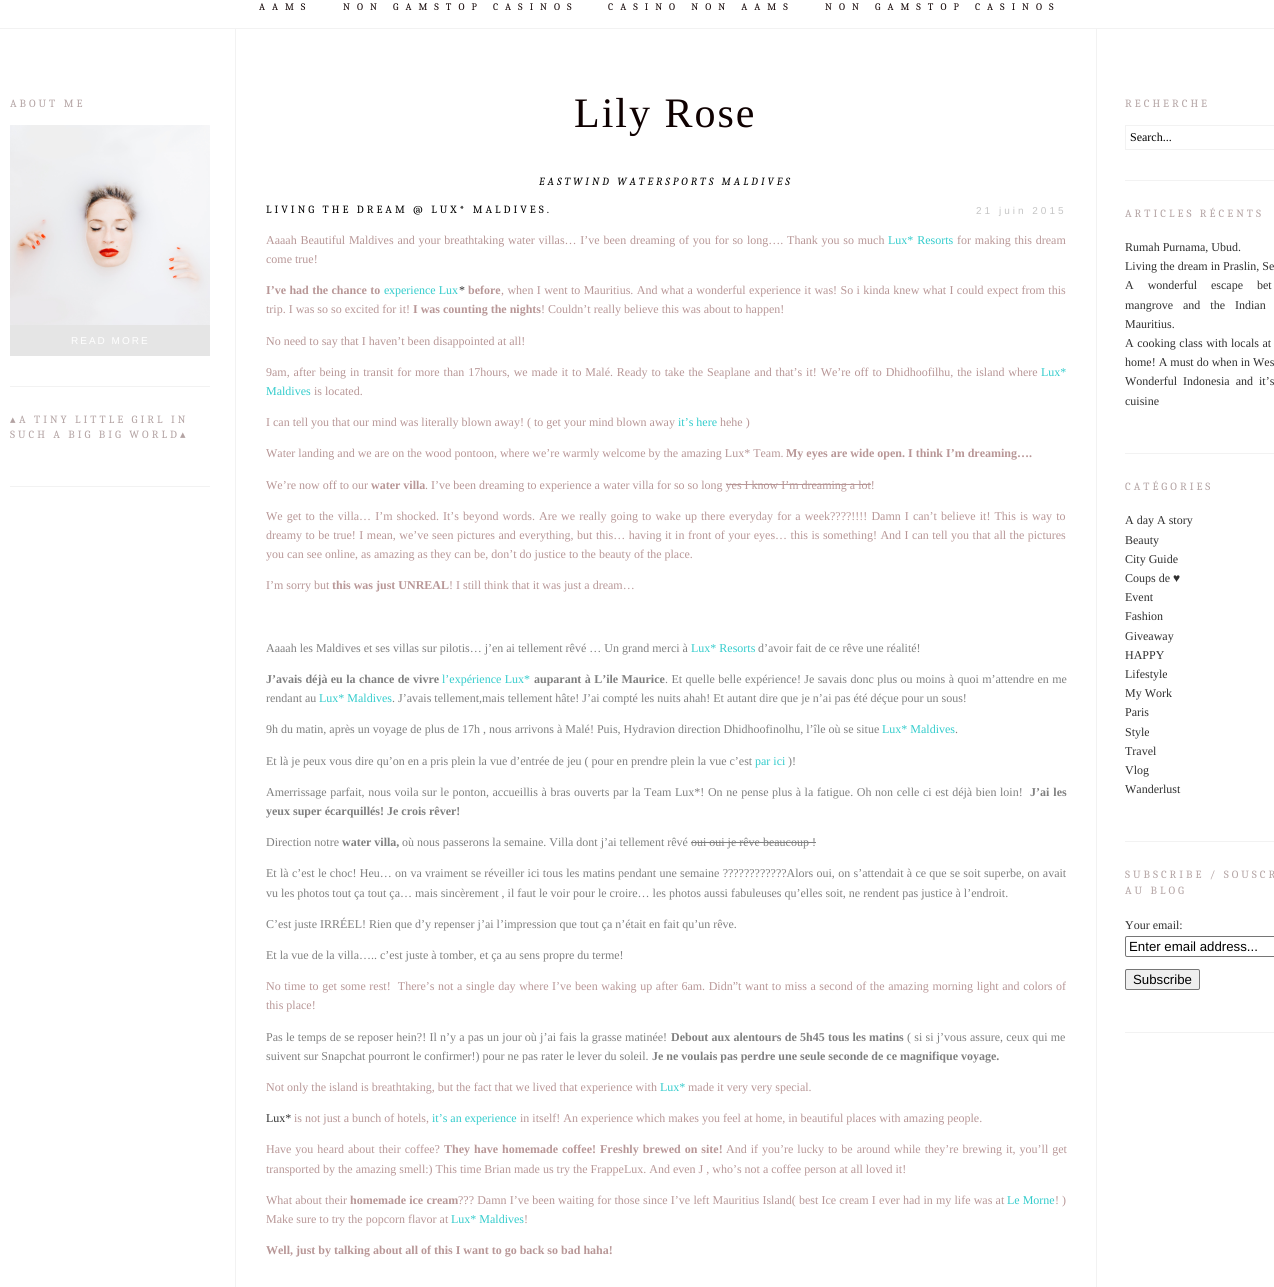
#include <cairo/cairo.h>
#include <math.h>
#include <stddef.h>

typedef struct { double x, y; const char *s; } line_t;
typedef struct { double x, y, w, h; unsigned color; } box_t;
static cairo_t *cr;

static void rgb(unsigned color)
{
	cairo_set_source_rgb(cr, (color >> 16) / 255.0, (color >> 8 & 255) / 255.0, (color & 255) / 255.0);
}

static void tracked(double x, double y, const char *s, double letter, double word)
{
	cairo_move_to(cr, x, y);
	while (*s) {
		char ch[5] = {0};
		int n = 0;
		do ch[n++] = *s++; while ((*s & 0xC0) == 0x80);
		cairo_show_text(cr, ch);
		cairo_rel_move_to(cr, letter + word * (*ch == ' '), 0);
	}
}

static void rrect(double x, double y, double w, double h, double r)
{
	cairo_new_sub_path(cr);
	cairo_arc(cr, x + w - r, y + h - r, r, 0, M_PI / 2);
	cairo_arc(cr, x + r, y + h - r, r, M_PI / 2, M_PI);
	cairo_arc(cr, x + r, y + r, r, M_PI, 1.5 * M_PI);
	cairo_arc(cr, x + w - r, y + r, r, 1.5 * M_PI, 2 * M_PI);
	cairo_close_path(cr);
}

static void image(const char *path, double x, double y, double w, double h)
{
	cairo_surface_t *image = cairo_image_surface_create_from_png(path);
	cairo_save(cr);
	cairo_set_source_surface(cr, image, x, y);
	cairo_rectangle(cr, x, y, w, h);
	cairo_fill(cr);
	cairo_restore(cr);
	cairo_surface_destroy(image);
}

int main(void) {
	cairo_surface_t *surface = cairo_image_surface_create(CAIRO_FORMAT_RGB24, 1274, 1287);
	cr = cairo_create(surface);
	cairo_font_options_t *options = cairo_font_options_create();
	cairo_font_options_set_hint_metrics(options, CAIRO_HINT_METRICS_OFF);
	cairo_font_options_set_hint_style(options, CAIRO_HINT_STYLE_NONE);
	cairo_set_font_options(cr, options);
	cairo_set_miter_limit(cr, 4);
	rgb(0xffffff);
	cairo_paint(cr);
	rgb(0xf2f2f2);
	cairo_rectangle(cr, 0, 28, 1274, 1);
	cairo_fill(cr);
	cairo_rectangle(cr, 10, 386, 200, 1);
	cairo_fill(cr);
	image("img/1.png", 10, 125, 200, 200);
	{
		static const box_t items[] = {
			{10, 325, 200, 31, 0xe5e5e5},
			{10, 486, 200, 1, 0xf2f2f2},
			{1096, 29, 1, 1258, 0xf2f2f2},
			{235, 29, 1, 1258, 0xf2f2f2},
			{726, 484, 145, 1, 0xb89797},
			{691, 842, 125, 1, 0x808080},
			{1125, 180, 149, 1, 0xf2f2f2},
		};
		for (size_t i = 0; i < sizeof items / sizeof *items; i++) {
			rgb(items[i].color);
			cairo_rectangle(cr, items[i].x, items[i].y, items[i].w, items[i].h);
			cairo_fill(cr);
		}
	}
	cairo_rectangle(cr, 1125.5, 125.5, 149, 24);
	cairo_set_line_width(cr, 1);
	cairo_stroke(cr);
	{
		static const box_t items[] = {
			{1125, 453, 149, 1, 0xf2f2f2},
			{1125, 841, 149, 1, 0xf2f2f2},
			{1125, 1032, 149, 1, 0xf2f2f2},
		};
		for (size_t i = 0; i < sizeof items / sizeof *items; i++) {
			rgb(items[i].color);
			cairo_rectangle(cr, items[i].x, items[i].y, items[i].w, items[i].h);
			cairo_fill(cr);
		}
	}
	rrect(1125.5, 936.5, 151, 20, 1.5);
	rgb(0x767676);
	cairo_stroke(cr);
	rgb(0xefefef);
	rrect(1125.5, 969.5, 74, 20, 1.5);
	cairo_fill_preserve(cr);
	rgb(0x767676);
	cairo_stroke(cr);
	cairo_select_font_face(cr, "Caladea", CAIRO_FONT_SLANT_NORMAL, CAIRO_FONT_WEIGHT_NORMAL);
	cairo_set_font_size(cr, 10);
	rgb(0x0f0101);
	{
		static const line_t items[] = {
			{259, 10, "AAMS"},
			{343, 10, "NON GAMSTOP CASINOS"},
			{608, 10, "CASINO NON AAMS"},
			{825, 10, "NON GAMSTOP CASINOS"},
		};
		for (size_t i = 0; i < sizeof items / sizeof *items; i++) {
			tracked(items[i].x, items[i].y, items[i].s, 7, 0);
		}
	}
	cairo_set_font_size(cr, 11);
	rgb(0xb3a3a3);
	tracked(10, 107, "ABOUT ME", 3, 0);
	cairo_select_font_face(cr, "Liberation Sans", CAIRO_FONT_SLANT_NORMAL, CAIRO_FONT_WEIGHT_NORMAL);
	cairo_set_font_size(cr, 10);
	rgb(0xffffff);
	tracked(71, 344, "READ MORE", 2, 0);
	cairo_select_font_face(cr, "DejaVu Sans", CAIRO_FONT_SLANT_NORMAL, CAIRO_FONT_WEIGHT_NORMAL);
	cairo_set_font_size(cr, 11);
	rgb(0xb3a3a3);
	tracked(10, 423, "▴", 3, 0);
	cairo_select_font_face(cr, "Caladea", CAIRO_FONT_SLANT_NORMAL, CAIRO_FONT_WEIGHT_NORMAL);
	tracked(19, 423, "A TINY LITTLE GIRL IN", 3, 0);
	tracked(10, 438, "SUCH A BIG BIG WORLD", 3, 0);
	cairo_select_font_face(cr, "DejaVu Sans", CAIRO_FONT_SLANT_NORMAL, CAIRO_FONT_WEIGHT_NORMAL);
	tracked(180, 438, "▴", 3, 0);
	cairo_select_font_face(cr, "Liberation Serif", CAIRO_FONT_SLANT_NORMAL, CAIRO_FONT_WEIGHT_NORMAL);
	cairo_set_font_size(cr, 42);
	rgb(0x0f0101);
	tracked(574, 127, "Lily Rose", 2, 0);
	cairo_select_font_face(cr, "Caladea", CAIRO_FONT_SLANT_ITALIC, CAIRO_FONT_WEIGHT_NORMAL);
	cairo_set_font_size(cr, 11);
	rgb(0x000000);
	tracked(539, 185, "EASTWIND WATERSPORTS MALDIVES", 3, 0);
	cairo_select_font_face(cr, "Caladea", CAIRO_FONT_SLANT_NORMAL, CAIRO_FONT_WEIGHT_NORMAL);
	tracked(266, 213, "LIVING THE DREAM @ LUX* MALDIVES.", 3, 0);
	cairo_select_font_face(cr, "Liberation Sans", CAIRO_FONT_SLANT_NORMAL, CAIRO_FONT_WEIGHT_NORMAL);
	cairo_set_font_size(cr, 10);
	rgb(0xc5c5c5);
	tracked(976, 214, "21 juin 2015", 3, 0);
	cairo_select_font_face(cr, "Liberation Serif", CAIRO_FONT_SLANT_NORMAL, CAIRO_FONT_WEIGHT_NORMAL);
	cairo_set_font_size(cr, 12);
	rgb(0xb89797);
	tracked(266, 244, "Aaaah Beautiful Maldives and your breathtaking water villas… I’ve been dreaming of you for so long…. Thank you so much", 0, 0.8);
	rgb(0x33cccc);
	tracked(888, 244, "Lux* Resorts", 0, 0.8);
	rgb(0xb89797);
	tracked(957, 244, "for making this dream", 0, 0.8);
	cairo_move_to(cr, 266, 263);
	cairo_show_text(cr, "come true!");
	cairo_select_font_face(cr, "Liberation Serif", CAIRO_FONT_SLANT_NORMAL, CAIRO_FONT_WEIGHT_BOLD);
	tracked(266, 294, "I’ve had the chance to", 0, 0.4);
	cairo_select_font_face(cr, "Liberation Serif", CAIRO_FONT_SLANT_NORMAL, CAIRO_FONT_WEIGHT_NORMAL);
	rgb(0x33cccc);
	cairo_move_to(cr, 384, 294);
	cairo_show_text(cr, "e");
	cairo_move_to(cr, 389, 294);
	cairo_show_text(cr, "xperience Lux");
	rgb(0x303030);
	cairo_move_to(cr, 459, 294);
	cairo_show_text(cr, "*");
	cairo_select_font_face(cr, "Liberation Serif", CAIRO_FONT_SLANT_NORMAL, CAIRO_FONT_WEIGHT_BOLD);
	rgb(0xb89797);
	cairo_move_to(cr, 468, 294);
	cairo_show_text(cr, "before");
	cairo_select_font_face(cr, "Liberation Serif", CAIRO_FONT_SLANT_NORMAL, CAIRO_FONT_WEIGHT_NORMAL);
	tracked(501, 294, ", when I went to Mauritius. And what a wonderful experience it was! So i kinda knew what I could expect from this", 0, 0.4);
	cairo_move_to(cr, 266, 313);
	cairo_show_text(cr, "trip. I was so so excited for it!");
	cairo_select_font_face(cr, "Liberation Serif", CAIRO_FONT_SLANT_NORMAL, CAIRO_FONT_WEIGHT_BOLD);
	cairo_move_to(cr, 413, 313);
	cairo_show_text(cr, "I was counting the nights");
	cairo_select_font_face(cr, "Liberation Serif", CAIRO_FONT_SLANT_NORMAL, CAIRO_FONT_WEIGHT_NORMAL);
	cairo_move_to(cr, 541, 313);
	cairo_show_text(cr, "! Couldn’t really believe this was about to happen!");
	cairo_move_to(cr, 266, 345);
	cairo_show_text(cr, "No need to say that I haven’t been disappointed at all!");
	tracked(266, 376, "9am, after being in transit for more than 17hours, we made it to Malé. Ready to take the Seaplane and that’s it! We’re off to Dhidhoofilhu, the island where", 0, 0.9);
	rgb(0x33cccc);
	cairo_move_to(cr, 1041, 376);
	cairo_show_text(cr, "Lux*");
	cairo_move_to(cr, 266, 395);
	cairo_show_text(cr, "Maldives");
	rgb(0xb89797);
	cairo_move_to(cr, 314, 395);
	cairo_show_text(cr, "is located.");
	cairo_move_to(cr, 266, 426);
	cairo_show_text(cr, "I can tell you that our mind was literally blown away! ( to get your mind blown away");
	rgb(0x33cccc);
	cairo_move_to(cr, 678, 426);
	cairo_show_text(cr, "it’s here");
	rgb(0xb89797);
	cairo_move_to(cr, 720, 426);
	cairo_show_text(cr, "hehe )");
	cairo_move_to(cr, 266, 457);
	cairo_show_text(cr, "Water landing and we are on the wood pontoon, where we’re warmly welcome by the amazing Lux* Team.");
	cairo_select_font_face(cr, "Liberation Serif", CAIRO_FONT_SLANT_NORMAL, CAIRO_FONT_WEIGHT_BOLD);
	cairo_move_to(cr, 786, 457);
	cairo_show_text(cr, "My eyes are wide open. I think I’m dreaming….");
	cairo_select_font_face(cr, "Liberation Serif", CAIRO_FONT_SLANT_NORMAL, CAIRO_FONT_WEIGHT_NORMAL);
	cairo_move_to(cr, 266, 489);
	cairo_show_text(cr, "We’re now off to our");
	cairo_select_font_face(cr, "Liberation Serif", CAIRO_FONT_SLANT_NORMAL, CAIRO_FONT_WEIGHT_BOLD);
	cairo_move_to(cr, 371, 489);
	cairo_show_text(cr, "water villa");
	cairo_select_font_face(cr, "Liberation Serif", CAIRO_FONT_SLANT_NORMAL, CAIRO_FONT_WEIGHT_NORMAL);
	cairo_move_to(cr, 425, 489);
	cairo_show_text(cr, ". I’ve been dreaming to experience a water villa for so so long yes I know I’m dreaming a lot!");
	tracked(266, 520, "We get to the villa… I’m shocked. It’s beyond words. Are we really going to wake up there everyday for a week?\077?\077!!!! Damn I can’t believe it! This is way to", 0, 1.1);
	tracked(266, 539, "dreamy to be true! I mean, we’ve seen pictures and everything, but this… having it in front of your eyes… this is something! And I can tell you that all the pictures", 0, 0.5);
	cairo_move_to(cr, 266, 558);
	cairo_show_text(cr, "you can see online, as amazing as they can be, don’t do justice to the beauty of the place.");
	cairo_move_to(cr, 266, 589);
	cairo_show_text(cr, "I’m sorry but");
	cairo_select_font_face(cr, "Liberation Serif", CAIRO_FONT_SLANT_NORMAL, CAIRO_FONT_WEIGHT_BOLD);
	cairo_move_to(cr, 332, 589);
	cairo_show_text(cr, "this was just UNREAL");
	cairo_select_font_face(cr, "Liberation Serif", CAIRO_FONT_SLANT_NORMAL, CAIRO_FONT_WEIGHT_NORMAL);
	cairo_move_to(cr, 449, 589);
	cairo_show_text(cr, "! I still think that it was just a dream…");
	rgb(0x808080);
	cairo_move_to(cr, 266, 652);
	cairo_show_text(cr, "Aaaah les Maldives et ses villas sur pilotis… j’en ai tellement rêvé … Un grand merci à");
	rgb(0x33cccc);
	cairo_move_to(cr, 691, 652);
	cairo_show_text(cr, "Lux* Resorts");
	rgb(0x808080);
	cairo_move_to(cr, 758, 652);
	cairo_show_text(cr, "d’avoir fait de ce rêve une réalité!");
	cairo_select_font_face(cr, "Liberation Serif", CAIRO_FONT_SLANT_NORMAL, CAIRO_FONT_WEIGHT_BOLD);
	tracked(266, 683, "J’avais déjà eu la chance de vivre", 0, 0.4);
	cairo_select_font_face(cr, "Liberation Serif", CAIRO_FONT_SLANT_NORMAL, CAIRO_FONT_WEIGHT_NORMAL);
	rgb(0x33cccc);
	tracked(442, 683, "l’expérience Lux*", 0, 0.4);
	cairo_select_font_face(cr, "Liberation Serif", CAIRO_FONT_SLANT_NORMAL, CAIRO_FONT_WEIGHT_BOLD);
	rgb(0x808080);
	tracked(534, 683, "auparant à L’ile Maurice", 0, 0.4);
	cairo_select_font_face(cr, "Liberation Serif", CAIRO_FONT_SLANT_NORMAL, CAIRO_FONT_WEIGHT_NORMAL);
	tracked(665, 683, ". Et quelle belle expérience! Je savais donc plus ou moins à quoi m’attendre en me", 0, 0.4);
	cairo_move_to(cr, 266, 702);
	cairo_show_text(cr, "rendant au");
	rgb(0x33cccc);
	cairo_move_to(cr, 319, 702);
	cairo_show_text(cr, "Lux* Maldives");
	rgb(0x808080);
	cairo_move_to(cr, 392, 702);
	cairo_show_text(cr, ". J’avais tellement,mais tellement hâte! J’ai compté les nuits ahah! Et autant dire que je n’ai pas été déçue pour un sous!");
	cairo_move_to(cr, 266, 733);
	cairo_show_text(cr, "9h du matin, après un voyage de plus de 17h , nous arrivons à Malé! Puis, Hydravion direction Dhidhoofinolhu, l’île où se situe");
	rgb(0x33cccc);
	cairo_move_to(cr, 882, 733);
	cairo_show_text(cr, "Lux* Maldives");
	rgb(0x808080);
	cairo_move_to(cr, 955, 733);
	cairo_show_text(cr, ".");
	cairo_move_to(cr, 266, 765);
	cairo_show_text(cr, "Et là je peux vous dire qu’on en a pris plein la vue d’entrée de jeu ( pour en prendre plein la vue c’est");
	rgb(0x33cccc);
	cairo_move_to(cr, 755, 765);
	cairo_show_text(cr, "par ici");
	rgb(0x808080);
	cairo_move_to(cr, 788, 765);
	cairo_show_text(cr, ")!");
	tracked(266, 796, "Amerrissage parfait, nous voila sur le ponton, accueillis à bras ouverts par la Team Lux*! On ne pense plus à la fatigue. Oh non celle ci est déjà bien loin!", 0, 0.6);
	cairo_select_font_face(cr, "Liberation Serif", CAIRO_FONT_SLANT_NORMAL, CAIRO_FONT_WEIGHT_BOLD);
	tracked(1030, 796, "J’ai les", 0, 1);
	cairo_move_to(cr, 266, 815);
	cairo_show_text(cr, "yeux super écarquillés! Je crois rêver!");
	cairo_select_font_face(cr, "Liberation Serif", CAIRO_FONT_SLANT_NORMAL, CAIRO_FONT_WEIGHT_NORMAL);
	cairo_move_to(cr, 266, 846);
	cairo_show_text(cr, "Direction notre");
	cairo_select_font_face(cr, "Liberation Serif", CAIRO_FONT_SLANT_NORMAL, CAIRO_FONT_WEIGHT_BOLD);
	cairo_move_to(cr, 342, 846);
	cairo_show_text(cr, "water villa,");
	cairo_select_font_face(cr, "Liberation Serif", CAIRO_FONT_SLANT_NORMAL, CAIRO_FONT_WEIGHT_NORMAL);
	cairo_move_to(cr, 402, 846);
	cairo_show_text(cr, "où nous passerons la semaine. Villa dont j’ai tellement rêvé oui oui je rêve beaucoup !");
	tracked(266, 877, "Et là c’est le choc! Heu… on va vraiment se réveiller ici tous les matins pendant une semaine ?\077?\077?\077?\077?\077?\077Alors oui, on s’attendait à ce que se soit superbe, on avait", 0, 0.3);
	{
		static const line_t items[] = {
			{266, 897, "vu les photos tout ça tout ça… mais sincèrement , il faut le voir pour le croire… les photos aussi fabuleuses qu’elles soit, ne rendent pas justice à l’endroit."},
			{266, 928, "C’est juste IRRÉEL! Rien que d’y repenser j’ai l’impression que tout ça n’était en fait qu’un rêve."},
			{266, 959, "Et la vue de la villa….. c’est juste à tomber, et ça au sens propre du terme!"},
		};
		for (size_t i = 0; i < sizeof items / sizeof *items; i++) {
			cairo_move_to(cr, items[i].x, items[i].y);
			cairo_show_text(cr, items[i].s);
		}
	}
	rgb(0xb89797);
	tracked(266, 990, "No time to get some rest!  There’s not a single day where I’ve been waking up after 6am. Didn”t want to miss a second of the amazing morning light and colors of", 0, 0.6);
	cairo_move_to(cr, 266, 1009);
	cairo_show_text(cr, "this place!");
	rgb(0x808080);
	tracked(266, 1041, "Pas le temps de se reposer hein?! Il n’y a pas un jour où j’ai fais la grasse matinée!", 0, 0.25);
	cairo_select_font_face(cr, "Liberation Serif", CAIRO_FONT_SLANT_NORMAL, CAIRO_FONT_WEIGHT_BOLD);
	tracked(671, 1041, "Debout aux alentours de 5h45 tous les matins", 0, 0.25);
	cairo_select_font_face(cr, "Liberation Serif", CAIRO_FONT_SLANT_NORMAL, CAIRO_FONT_WEIGHT_NORMAL);
	tracked(907, 1041, "( si si j’vous assure, ceux qui me", 0, 0.25);
	cairo_move_to(cr, 266, 1060);
	cairo_show_text(cr, "suivent sur Snapchat pourront le confirmer!) pour ne pas rater le lever du soleil.");
	cairo_select_font_face(cr, "Liberation Serif", CAIRO_FONT_SLANT_NORMAL, CAIRO_FONT_WEIGHT_BOLD);
	cairo_move_to(cr, 652, 1060);
	cairo_show_text(cr, "Je ne voulais pas perdre une seule seconde de ce magnifique voyage.");
	cairo_select_font_face(cr, "Liberation Serif", CAIRO_FONT_SLANT_NORMAL, CAIRO_FONT_WEIGHT_NORMAL);
	rgb(0xb89797);
	cairo_move_to(cr, 266, 1091);
	cairo_show_text(cr, "Not only the island is breathtaking, but the fact that we lived that experience with");
	rgb(0x33cccc);
	cairo_move_to(cr, 660, 1091);
	cairo_show_text(cr, "Lux*");
	rgb(0xb89797);
	cairo_move_to(cr, 688, 1091);
	cairo_show_text(cr, "made it very very special.");
	rgb(0x303030);
	cairo_move_to(cr, 266, 1122);
	cairo_show_text(cr, "Lux*");
	rgb(0xb89797);
	cairo_move_to(cr, 294, 1122);
	cairo_show_text(cr, "is not just a bunch of hotels,");
	rgb(0x33cccc);
	cairo_move_to(cr, 432, 1122);
	cairo_show_text(cr, "it’s an experience");
	rgb(0xb89797);
	cairo_move_to(cr, 520, 1122);
	cairo_show_text(cr, "in itself! An experience which makes you feel at home, in beautiful places with amazing people.");
	tracked(266, 1153, "Have you heard about their coffee?", 0, 1);
	cairo_select_font_face(cr, "Liberation Serif", CAIRO_FONT_SLANT_NORMAL, CAIRO_FONT_WEIGHT_BOLD);
	tracked(444, 1153, "They have homemade coffee! Freshly brewed on site!", 0, 1);
	cairo_select_font_face(cr, "Liberation Serif", CAIRO_FONT_SLANT_NORMAL, CAIRO_FONT_WEIGHT_NORMAL);
	tracked(726, 1153, "And if you’re lucky to be around while they’re brewing it, you’ll get", 0, 1);
	cairo_move_to(cr, 266, 1173);
	cairo_show_text(cr, "transported by the amazing smell:) This time Brian made us try the FrappeLux. And even J , who’s not a coffee person at all loved it!");
	tracked(266, 1204, "What about their", 0, 0.2);
	cairo_select_font_face(cr, "Liberation Serif", CAIRO_FONT_SLANT_NORMAL, CAIRO_FONT_WEIGHT_BOLD);
	tracked(350, 1204, "homemade ice cream", 0, 0.2);
	cairo_select_font_face(cr, "Liberation Serif", CAIRO_FONT_SLANT_NORMAL, CAIRO_FONT_WEIGHT_NORMAL);
	tracked(458, 1204, "?\077? Damn I’ve been waiting for those since I’ve left Mauritius Island( best Ice cream I ever had in my life was at", 0, 0.2);
	rgb(0x33cccc);
	cairo_move_to(cr, 1007, 1204);
	cairo_show_text(cr, "Le Morne");
	rgb(0xb89797);
	cairo_move_to(cr, 1055, 1204);
	cairo_show_text(cr, "! )");
	cairo_move_to(cr, 266, 1223);
	cairo_show_text(cr, "Make sure to try the popcorn flavor at");
	rgb(0x33cccc);
	cairo_move_to(cr, 451, 1223);
	cairo_show_text(cr, "Lux* Maldives");
	rgb(0xb89797);
	cairo_move_to(cr, 524, 1223);
	cairo_show_text(cr, "!");
	cairo_select_font_face(cr, "Liberation Serif", CAIRO_FONT_SLANT_NORMAL, CAIRO_FONT_WEIGHT_BOLD);
	cairo_move_to(cr, 266, 1254);
	cairo_show_text(cr, "Well, just by talking about all of this I want to go back so bad haha!");
	cairo_select_font_face(cr, "Caladea", CAIRO_FONT_SLANT_NORMAL, CAIRO_FONT_WEIGHT_NORMAL);
	cairo_set_font_size(cr, 11);
	rgb(0xb3a3a3);
	tracked(1125, 107, "RECHERCHE", 3, 0);
	cairo_select_font_face(cr, "Liberation Serif", CAIRO_FONT_SLANT_NORMAL, CAIRO_FONT_WEIGHT_NORMAL);
	cairo_set_font_size(cr, 12);
	rgb(0x000000);
	cairo_move_to(cr, 1130, 141);
	cairo_show_text(cr, "Search...");
	cairo_select_font_face(cr, "Caladea", CAIRO_FONT_SLANT_NORMAL, CAIRO_FONT_WEIGHT_NORMAL);
	cairo_set_font_size(cr, 11);
	rgb(0xb3a3a3);
	tracked(1125, 217, "ARTICLES RÉCENTS", 3, 0);
	cairo_select_font_face(cr, "Liberation Serif", CAIRO_FONT_SLANT_NORMAL, CAIRO_FONT_WEIGHT_NORMAL);
	cairo_set_font_size(cr, 12);
	rgb(0x303030);
	cairo_move_to(cr, 1125, 251);
	cairo_show_text(cr, "Rumah Purnama, Ubud.");
	cairo_move_to(cr, 1125, 270);
	cairo_show_text(cr, "Living the dream in Praslin, Se");
	tracked(1125, 289, "A wonderful escape bet", 0, 11);
	tracked(1125, 309, "mangrove and the Indian", 0, 7);
	cairo_move_to(cr, 1125, 328);
	cairo_show_text(cr, "Mauritius.");
	tracked(1125, 347, "A cooking class with locals at", 0, 0.5);
	cairo_move_to(cr, 1125, 366);
	cairo_show_text(cr, "home! A must do when in Wes");
	tracked(1125, 385, "Wonderful Indonesia and it’s", 0, 3);
	cairo_move_to(cr, 1125, 405);
	cairo_show_text(cr, "cuisine");
	cairo_select_font_face(cr, "Caladea", CAIRO_FONT_SLANT_NORMAL, CAIRO_FONT_WEIGHT_NORMAL);
	cairo_set_font_size(cr, 11);
	rgb(0xb3a3a3);
	tracked(1125, 490, "CATÉGORIES", 3, 0);
	cairo_select_font_face(cr, "Liberation Serif", CAIRO_FONT_SLANT_NORMAL, CAIRO_FONT_WEIGHT_NORMAL);
	cairo_set_font_size(cr, 12);
	rgb(0x303030);
	{
		static const line_t items[] = {
			{1125, 524, "A day A story"},
			{1125, 544, "Beauty"},
			{1125, 563, "City Guide"},
			{1125, 582, "Coups de ♥"},
			{1125, 601, "Event"},
			{1125, 620, "Fashion"},
			{1125, 640, "Giveaway"},
			{1125, 659, "HAPPY"},
			{1125, 678, "Lifestyle"},
			{1125, 697, "My Work"},
			{1125, 716, "Paris"},
			{1125, 736, "Style"},
			{1125, 755, "Travel"},
			{1125, 774, "Vlog"},
			{1125, 793, "Wanderlust"},
		};
		for (size_t i = 0; i < sizeof items / sizeof *items; i++) {
			cairo_move_to(cr, items[i].x, items[i].y);
			cairo_show_text(cr, items[i].s);
		}
	}
	cairo_select_font_face(cr, "Caladea", CAIRO_FONT_SLANT_NORMAL, CAIRO_FONT_WEIGHT_NORMAL);
	cairo_set_font_size(cr, 11);
	rgb(0xb3a3a3);
	tracked(1125, 878, "SUBSCRIBE / SOUSCR", 3, 0);
	tracked(1125, 894, "AU BLOG", 3, 0);
	cairo_select_font_face(cr, "Liberation Serif", CAIRO_FONT_SLANT_NORMAL, CAIRO_FONT_WEIGHT_NORMAL);
	cairo_set_font_size(cr, 12);
	rgb(0x303030);
	cairo_move_to(cr, 1125, 929);
	cairo_show_text(cr, "Your email:");
	cairo_select_font_face(cr, "Liberation Sans", CAIRO_FONT_SLANT_NORMAL, CAIRO_FONT_WEIGHT_NORMAL);
	cairo_set_font_size(cr, 13.25);
	rgb(0x000000);
	cairo_move_to(cr, 1129, 951);
	cairo_show_text(cr, "Enter email address...");
	cairo_move_to(cr, 1133, 984);
	cairo_show_text(cr, "Subscribe");
	cairo_surface_write_to_png(surface, "page.png");
	cairo_font_options_destroy(options);
	cairo_destroy(cr);
	cairo_surface_destroy(surface);
	return 0;
}
